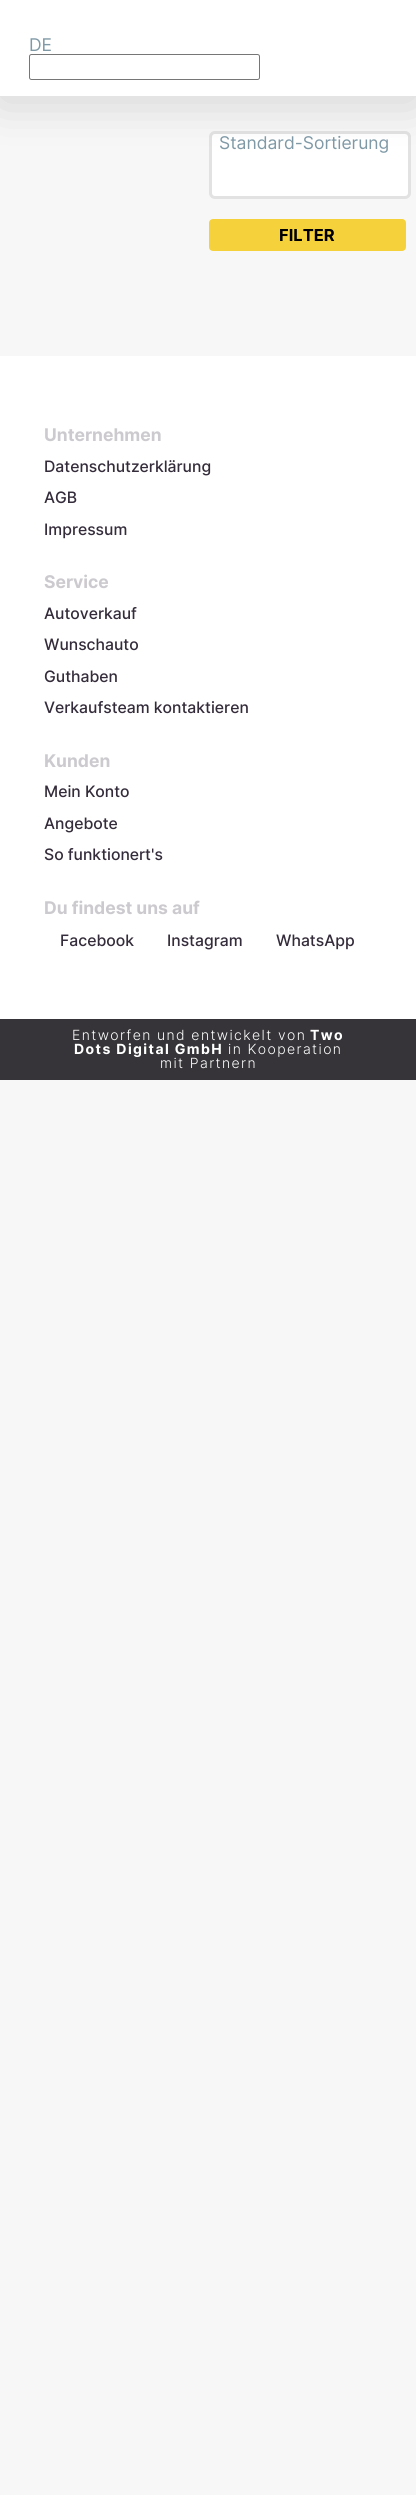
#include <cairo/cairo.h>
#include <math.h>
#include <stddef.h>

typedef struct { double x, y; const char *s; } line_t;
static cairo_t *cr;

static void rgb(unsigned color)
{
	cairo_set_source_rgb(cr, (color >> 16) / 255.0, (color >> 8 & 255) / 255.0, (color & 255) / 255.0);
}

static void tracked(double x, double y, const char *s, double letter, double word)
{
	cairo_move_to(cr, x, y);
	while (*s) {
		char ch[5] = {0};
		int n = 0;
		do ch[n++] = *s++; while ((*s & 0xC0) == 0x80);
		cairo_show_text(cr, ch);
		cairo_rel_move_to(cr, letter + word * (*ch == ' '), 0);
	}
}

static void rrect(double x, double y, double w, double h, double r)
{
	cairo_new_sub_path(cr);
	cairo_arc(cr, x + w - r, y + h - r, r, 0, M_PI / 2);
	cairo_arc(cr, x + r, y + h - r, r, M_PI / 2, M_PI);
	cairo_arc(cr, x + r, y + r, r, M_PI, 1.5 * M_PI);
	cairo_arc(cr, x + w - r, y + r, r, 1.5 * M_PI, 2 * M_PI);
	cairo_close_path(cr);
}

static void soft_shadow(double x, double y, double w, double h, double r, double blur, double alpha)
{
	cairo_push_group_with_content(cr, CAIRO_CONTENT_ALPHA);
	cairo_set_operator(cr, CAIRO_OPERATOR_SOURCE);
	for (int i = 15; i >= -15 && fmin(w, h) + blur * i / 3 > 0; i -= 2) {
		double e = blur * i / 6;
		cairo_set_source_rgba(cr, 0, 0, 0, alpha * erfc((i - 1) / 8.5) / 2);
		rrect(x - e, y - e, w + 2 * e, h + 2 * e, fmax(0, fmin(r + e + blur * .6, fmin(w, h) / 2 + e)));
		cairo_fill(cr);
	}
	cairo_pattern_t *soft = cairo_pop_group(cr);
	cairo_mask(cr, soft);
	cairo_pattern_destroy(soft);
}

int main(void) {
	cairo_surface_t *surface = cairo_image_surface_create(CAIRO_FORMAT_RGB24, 416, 2495);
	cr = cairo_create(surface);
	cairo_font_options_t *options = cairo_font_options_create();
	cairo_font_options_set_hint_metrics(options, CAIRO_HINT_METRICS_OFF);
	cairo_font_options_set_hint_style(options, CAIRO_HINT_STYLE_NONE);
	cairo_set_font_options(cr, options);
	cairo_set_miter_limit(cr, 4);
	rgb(0xf7f7f7);
	cairo_paint(cr);
	rgb(0xffffff);
	rrect(210.5, 132.5, 199, 65, 4.5);
	cairo_fill_preserve(cr);
	rgb(0xe2e2e2);
	cairo_set_line_width(cr, 3);
	cairo_stroke(cr);
	rgb(0x000000);
	soft_shadow(0, 4, 416, 96, 0, 25, 0.16);
	rgb(0xffffff);
	cairo_rectangle(cr, 0, 0, 416, 96);
	cairo_fill(cr);
	rrect(29.5, 54.5, 230, 25, 2);
	rgb(0x767676);
	cairo_set_line_width(cr, 1);
	cairo_stroke(cr);
	rgb(0xf5d23c);
	rrect(209, 219, 197, 32, 4);
	cairo_fill(cr);
	rgb(0xffffff);
	cairo_rectangle(cr, 0, 356, 416, 663);
	cairo_fill(cr);
	rgb(0x363438);
	cairo_rectangle(cr, 0, 1019, 416, 61);
	cairo_fill(cr);
	cairo_select_font_face(cr, "Inter", CAIRO_FONT_SLANT_NORMAL, CAIRO_FONT_WEIGHT_NORMAL);
	cairo_set_font_size(cr, 17.5);
	rgb(0x7f99a6);
	cairo_move_to(cr, 29, 51);
	cairo_show_text(cr, "DE");
	cairo_move_to(cr, 219, 149);
	cairo_show_text(cr, "Standard-Sortierung");
	cairo_select_font_face(cr, "Inter", CAIRO_FONT_SLANT_NORMAL, CAIRO_FONT_WEIGHT_BOLD);
	cairo_set_font_size(cr, 16.5);
	rgb(0x000000);
	cairo_move_to(cr, 279, 241);
	cairo_show_text(cr, "FILTER");
	cairo_set_font_size(cr, 17.5);
	rgb(0xcccace);
	cairo_move_to(cr, 44, 441);
	cairo_show_text(cr, "Unternehmen");
	cairo_select_font_face(cr, "Inter Medium", CAIRO_FONT_SLANT_NORMAL, CAIRO_FONT_WEIGHT_NORMAL);
	cairo_set_font_size(cr, 15.75);
	rgb(0x342c3a);
	{
		static const line_t items[] = {
			{44, 472, "Datenschutzerklärung"},
			{44, 503, "AGB"},
			{44, 535, "Impressum"},
		};
		for (size_t i = 0; i < sizeof items / sizeof *items; i++) {
			cairo_move_to(cr, items[i].x, items[i].y);
			cairo_show_text(cr, items[i].s);
		}
	}
	cairo_select_font_face(cr, "Inter", CAIRO_FONT_SLANT_NORMAL, CAIRO_FONT_WEIGHT_BOLD);
	cairo_set_font_size(cr, 17.5);
	rgb(0xcccace);
	cairo_move_to(cr, 44, 588);
	cairo_show_text(cr, "Service");
	cairo_select_font_face(cr, "Inter Medium", CAIRO_FONT_SLANT_NORMAL, CAIRO_FONT_WEIGHT_NORMAL);
	cairo_set_font_size(cr, 15.75);
	rgb(0x342c3a);
	{
		static const line_t items[] = {
			{44, 619, "Autoverkauf"},
			{44, 650, "Wunschauto"},
			{44, 682, "Guthaben"},
			{44, 713, "Verkaufsteam kontaktieren"},
		};
		for (size_t i = 0; i < sizeof items / sizeof *items; i++) {
			cairo_move_to(cr, items[i].x, items[i].y);
			cairo_show_text(cr, items[i].s);
		}
	}
	cairo_select_font_face(cr, "Inter", CAIRO_FONT_SLANT_NORMAL, CAIRO_FONT_WEIGHT_BOLD);
	cairo_set_font_size(cr, 17.5);
	rgb(0xcccace);
	cairo_move_to(cr, 44, 767);
	cairo_show_text(cr, "Kunden");
	cairo_select_font_face(cr, "Inter Medium", CAIRO_FONT_SLANT_NORMAL, CAIRO_FONT_WEIGHT_NORMAL);
	cairo_set_font_size(cr, 15.75);
	rgb(0x342c3a);
	{
		static const line_t items[] = {
			{44, 797, "Mein Konto"},
			{44, 829, "Angebote"},
			{44, 860, "So funktionert's"},
		};
		for (size_t i = 0; i < sizeof items / sizeof *items; i++) {
			cairo_move_to(cr, items[i].x, items[i].y);
			cairo_show_text(cr, items[i].s);
		}
	}
	cairo_select_font_face(cr, "Inter", CAIRO_FONT_SLANT_NORMAL, CAIRO_FONT_WEIGHT_BOLD);
	cairo_set_font_size(cr, 17.5);
	rgb(0xcccace);
	cairo_move_to(cr, 44, 914);
	cairo_show_text(cr, "Du findest uns auf");
	cairo_select_font_face(cr, "Inter Medium", CAIRO_FONT_SLANT_NORMAL, CAIRO_FONT_WEIGHT_NORMAL);
	cairo_set_font_size(cr, 15.75);
	rgb(0x342c3a);
	{
		static const line_t items[] = {
			{60, 946, "Facebook"},
			{167, 946, "Instagram"},
			{276, 946, "WhatsApp"},
		};
		for (size_t i = 0; i < sizeof items / sizeof *items; i++) {
			cairo_move_to(cr, items[i].x, items[i].y);
			cairo_show_text(cr, items[i].s);
		}
	}
	cairo_select_font_face(cr, "Inter Light", CAIRO_FONT_SLANT_NORMAL, CAIRO_FONT_WEIGHT_NORMAL);
	cairo_set_font_size(cr, 14);
	rgb(0xffffff);
	tracked(72, 1040, "Entworfen und entwickelt von", 1.4, 0);
	cairo_select_font_face(cr, "Inter", CAIRO_FONT_SLANT_NORMAL, CAIRO_FONT_WEIGHT_BOLD);
	tracked(310, 1040, "Two", 1.4, 0);
	tracked(74, 1054, "Dots Digital GmbH", 1.4, 0);
	cairo_select_font_face(cr, "Inter Light", CAIRO_FONT_SLANT_NORMAL, CAIRO_FONT_WEIGHT_NORMAL);
	tracked(228, 1054, "in Kooperation", 1.4, 0);
	tracked(160, 1068, "mit Partnern", 1.4, 0);
	cairo_surface_write_to_png(surface, "page.png");
	cairo_font_options_destroy(options);
	cairo_destroy(cr);
	cairo_surface_destroy(surface);
	return 0;
}
